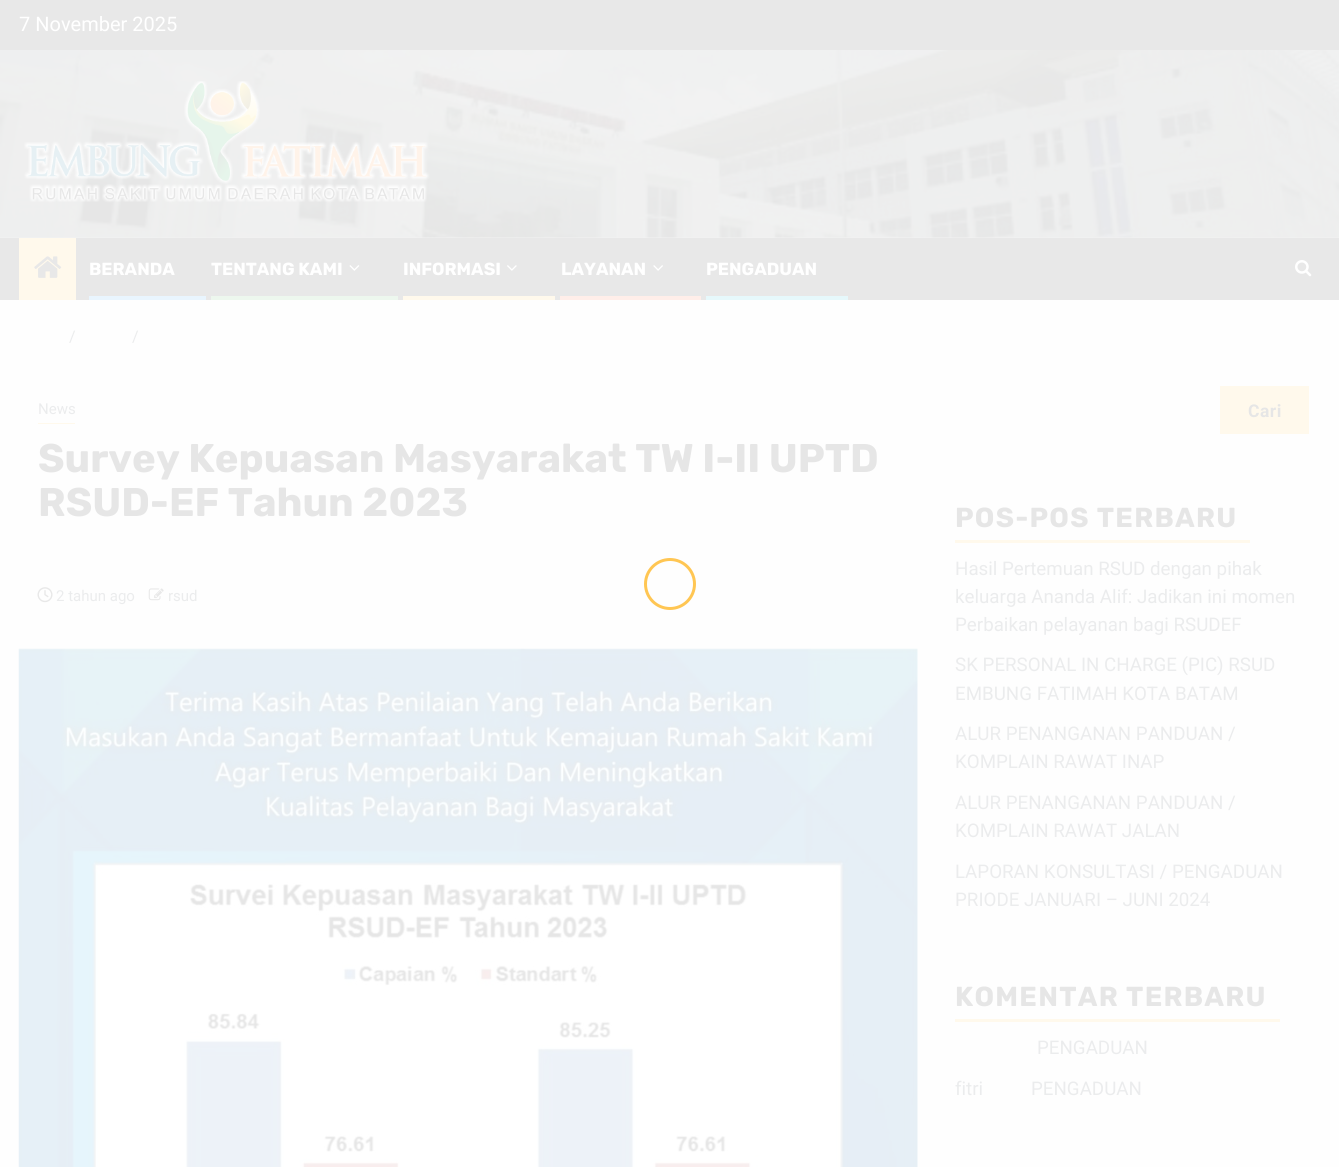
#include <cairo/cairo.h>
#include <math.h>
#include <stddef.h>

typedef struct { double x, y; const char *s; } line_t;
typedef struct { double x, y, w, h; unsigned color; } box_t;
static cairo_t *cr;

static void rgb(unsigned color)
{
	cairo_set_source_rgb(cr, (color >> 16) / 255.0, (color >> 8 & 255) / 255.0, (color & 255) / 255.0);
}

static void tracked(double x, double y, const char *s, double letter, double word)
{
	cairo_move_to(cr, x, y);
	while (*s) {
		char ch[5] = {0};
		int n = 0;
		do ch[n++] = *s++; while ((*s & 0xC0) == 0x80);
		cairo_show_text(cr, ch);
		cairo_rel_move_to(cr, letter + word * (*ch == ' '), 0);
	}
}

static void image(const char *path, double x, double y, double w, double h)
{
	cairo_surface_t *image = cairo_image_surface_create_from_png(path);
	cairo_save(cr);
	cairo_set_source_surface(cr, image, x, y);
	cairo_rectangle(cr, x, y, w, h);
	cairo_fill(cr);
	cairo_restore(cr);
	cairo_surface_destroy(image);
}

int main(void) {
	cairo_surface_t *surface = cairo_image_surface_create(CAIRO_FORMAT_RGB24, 1339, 1167);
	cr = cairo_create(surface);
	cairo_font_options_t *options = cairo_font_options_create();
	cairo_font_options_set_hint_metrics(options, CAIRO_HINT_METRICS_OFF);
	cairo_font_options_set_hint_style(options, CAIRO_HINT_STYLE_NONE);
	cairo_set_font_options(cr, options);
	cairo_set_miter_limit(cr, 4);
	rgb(0xfefefe);
	cairo_paint(cr);
	rgb(0xf2f2f2);
	cairo_rectangle(cr, 0, 237, 1339, 1);
	cairo_fill(cr);
	rgb(0xe8e8e8);
	cairo_rectangle(cr, 0, 0, 1339, 50);
	cairo_fill(cr);
	image("img/1.png", 0, 50, 1339, 188);
	image("img/2.png", 24, 81, 406, 122);
	cairo_rectangle(cr, 0, 238, 1339, 62);
	cairo_fill(cr);
	rgb(0xfff9ec);
	cairo_rectangle(cr, 19, 238, 57, 62);
	cairo_fill(cr);
	image("img/3.png", 34, 256, 28, 22);
	rgb(0xe9f5fe);
	cairo_rectangle(cr, 89, 296, 117, 4);
	cairo_fill(cr);
	image("img/4.png", 349, 265, 11, 6);
	rgb(0xedf7ee);
	cairo_rectangle(cr, 211, 296, 187, 4);
	cairo_fill(cr);
	image("img/5.png", 507, 265, 10, 6);
	rgb(0xfff9ec);
	cairo_rectangle(cr, 403, 296, 152, 4);
	cairo_fill(cr);
	image("img/6.png", 653, 265, 10, 6);
	rgb(0xffeee9);
	cairo_rectangle(cr, 560, 296, 141, 4);
	cairo_fill(cr);
	rgb(0xe6f8fb);
	cairo_rectangle(cr, 706, 296, 142, 4);
	cairo_fill(cr);
	image("img/7.png", 1295, 260, 17, 17);
	rgb(0xfff9ec);
	cairo_rectangle(cr, 38, 423, 37, 1);
	cairo_fill(cr);
	image("img/8.png", 37, 587, 16, 16);
	image("img/9.png", 148, 588, 16, 13);
	image("img/10.png", 18, 648, 900, 519);
	{
		static const box_t items[] = {
			{1220, 386, 89, 48, 0xfff9ec},
			{955, 540, 295, 3, 0xfff9ec},
			{955, 1019, 325, 3, 0xfff9ec},
		};
		for (size_t i = 0; i < sizeof items / sizeof *items; i++) {
			rgb(items[i].color);
			cairo_rectangle(cr, items[i].x, items[i].y, items[i].w, items[i].h);
			cairo_fill(cr);
		}
	}
	cairo_arc(cr, 670, 584, 24.5, 0, 2 * M_PI);
	rgb(0xffc653);
	cairo_set_line_width(cr, 3);
	cairo_stroke(cr);
	cairo_select_font_face(cr, "Roboto", CAIRO_FONT_SLANT_NORMAL, CAIRO_FONT_WEIGHT_NORMAL);
	cairo_set_font_size(cr, 20);
	rgb(0xffffff);
	cairo_move_to(cr, 19, 31);
	cairo_show_text(cr, "7 November 2025");
	cairo_select_font_face(cr, "Rubik", CAIRO_FONT_SLANT_NORMAL, CAIRO_FONT_WEIGHT_BOLD);
	cairo_set_font_size(cr, 17.5);
	{
		static const line_t items[] = {
			{89, 275, "BERANDA"},
			{211, 275, "TENTANG KAMI"},
			{403, 275, "INFORMASI"},
			{561, 275, "LAYANAN"},
			{706, 275, "PENGADUAN"},
		};
		for (size_t i = 0; i < sizeof items / sizeof *items; i++) {
			cairo_move_to(cr, items[i].x, items[i].y);
			cairo_show_text(cr, items[i].s);
		}
	}
	cairo_select_font_face(cr, "Roboto", CAIRO_FONT_SLANT_NORMAL, CAIRO_FONT_WEIGHT_NORMAL);
	cairo_set_font_size(cr, 16);
	rgb(0xebeced);
	cairo_move_to(cr, 69, 342);
	cairo_show_text(cr, "/");
	cairo_move_to(cr, 132, 342);
	cairo_show_text(cr, "/");
	cairo_set_font_size(cr, 15);
	cairo_move_to(cr, 38, 414);
	cairo_show_text(cr, "News");
	cairo_select_font_face(cr, "Rubik", CAIRO_FONT_SLANT_NORMAL, CAIRO_FONT_WEIGHT_BOLD);
	cairo_set_font_size(cr, 40);
	rgb(0xe6e6e6);
	cairo_move_to(cr, 38, 472);
	cairo_show_text(cr, "Survey Kepuasan Masyarakat TW I-II UPTD");
	cairo_move_to(cr, 38, 516);
	cairo_show_text(cr, "RSUD-EF Tahun 2023");
	cairo_select_font_face(cr, "Roboto", CAIRO_FONT_SLANT_NORMAL, CAIRO_FONT_WEIGHT_NORMAL);
	cairo_set_font_size(cr, 15);
	rgb(0xebeced);
	cairo_move_to(cr, 56, 601);
	cairo_show_text(cr, "2 tahun ago");
	cairo_move_to(cr, 168, 601);
	cairo_show_text(cr, "rsud");
	cairo_select_font_face(cr, "Roboto", CAIRO_FONT_SLANT_NORMAL, CAIRO_FONT_WEIGHT_BOLD);
	cairo_set_font_size(cr, 17.5);
	rgb(0xe6e6e6);
	tracked(1248, 417, "Cari", 0.5, 0);
	cairo_select_font_face(cr, "Rubik", CAIRO_FONT_SLANT_NORMAL, CAIRO_FONT_WEIGHT_BOLD);
	cairo_set_font_size(cr, 27.5);
	tracked(955, 527, "POS-POS TERBARU", 1.25, 0);
	cairo_select_font_face(cr, "Roboto", CAIRO_FONT_SLANT_NORMAL, CAIRO_FONT_WEIGHT_NORMAL);
	cairo_set_font_size(cr, 18.75);
	rgb(0xebeced);
	{
		static const line_t items[] = {
			{955, 575, "Hasil Pertemuan RSUD dengan pihak"},
			{955, 603, "keluarga Ananda Alif: Jadikan ini momen"},
			{955, 631, "Perbaikan pelayanan bagi RSUDEF"},
			{955, 671, "SK PERSONAL IN CHARGE (PIC) RSUD"},
			{955, 700, "EMBUNG FATIMAH KOTA BATAM"},
			{955, 740, "ALUR PENANGANAN PANDUAN /"},
			{955, 768, "KOMPLAIN RAWAT INAP"},
			{955, 809, "ALUR PENANGANAN PANDUAN /"},
			{955, 837, "KOMPLAIN RAWAT JALAN"},
			{955, 878, "LAPORAN KONSULTASI / PENGADUAN"},
			{955, 906, "PRIODE JANUARI – JUNI 2024"},
		};
		for (size_t i = 0; i < sizeof items / sizeof *items; i++) {
			cairo_move_to(cr, items[i].x, items[i].y);
			cairo_show_text(cr, items[i].s);
		}
	}
	cairo_select_font_face(cr, "Rubik", CAIRO_FONT_SLANT_NORMAL, CAIRO_FONT_WEIGHT_BOLD);
	cairo_set_font_size(cr, 27.5);
	rgb(0xe6e6e6);
	tracked(955, 1006, "KOMENTAR TERBARU", 1.25, 0);
	cairo_select_font_face(cr, "Roboto", CAIRO_FONT_SLANT_NORMAL, CAIRO_FONT_WEIGHT_NORMAL);
	cairo_set_font_size(cr, 18.75);
	rgb(0xebeced);
	{
		static const line_t items[] = {
			{1037, 1054, "PENGADUAN"},
			{955, 1095, "fitri"},
			{1031, 1095, "PENGADUAN"},
		};
		for (size_t i = 0; i < sizeof items / sizeof *items; i++) {
			cairo_move_to(cr, items[i].x, items[i].y);
			cairo_show_text(cr, items[i].s);
		}
	}
	cairo_surface_write_to_png(surface, "page.png");
	cairo_font_options_destroy(options);
	cairo_destroy(cr);
	cairo_surface_destroy(surface);
	return 0;
}
